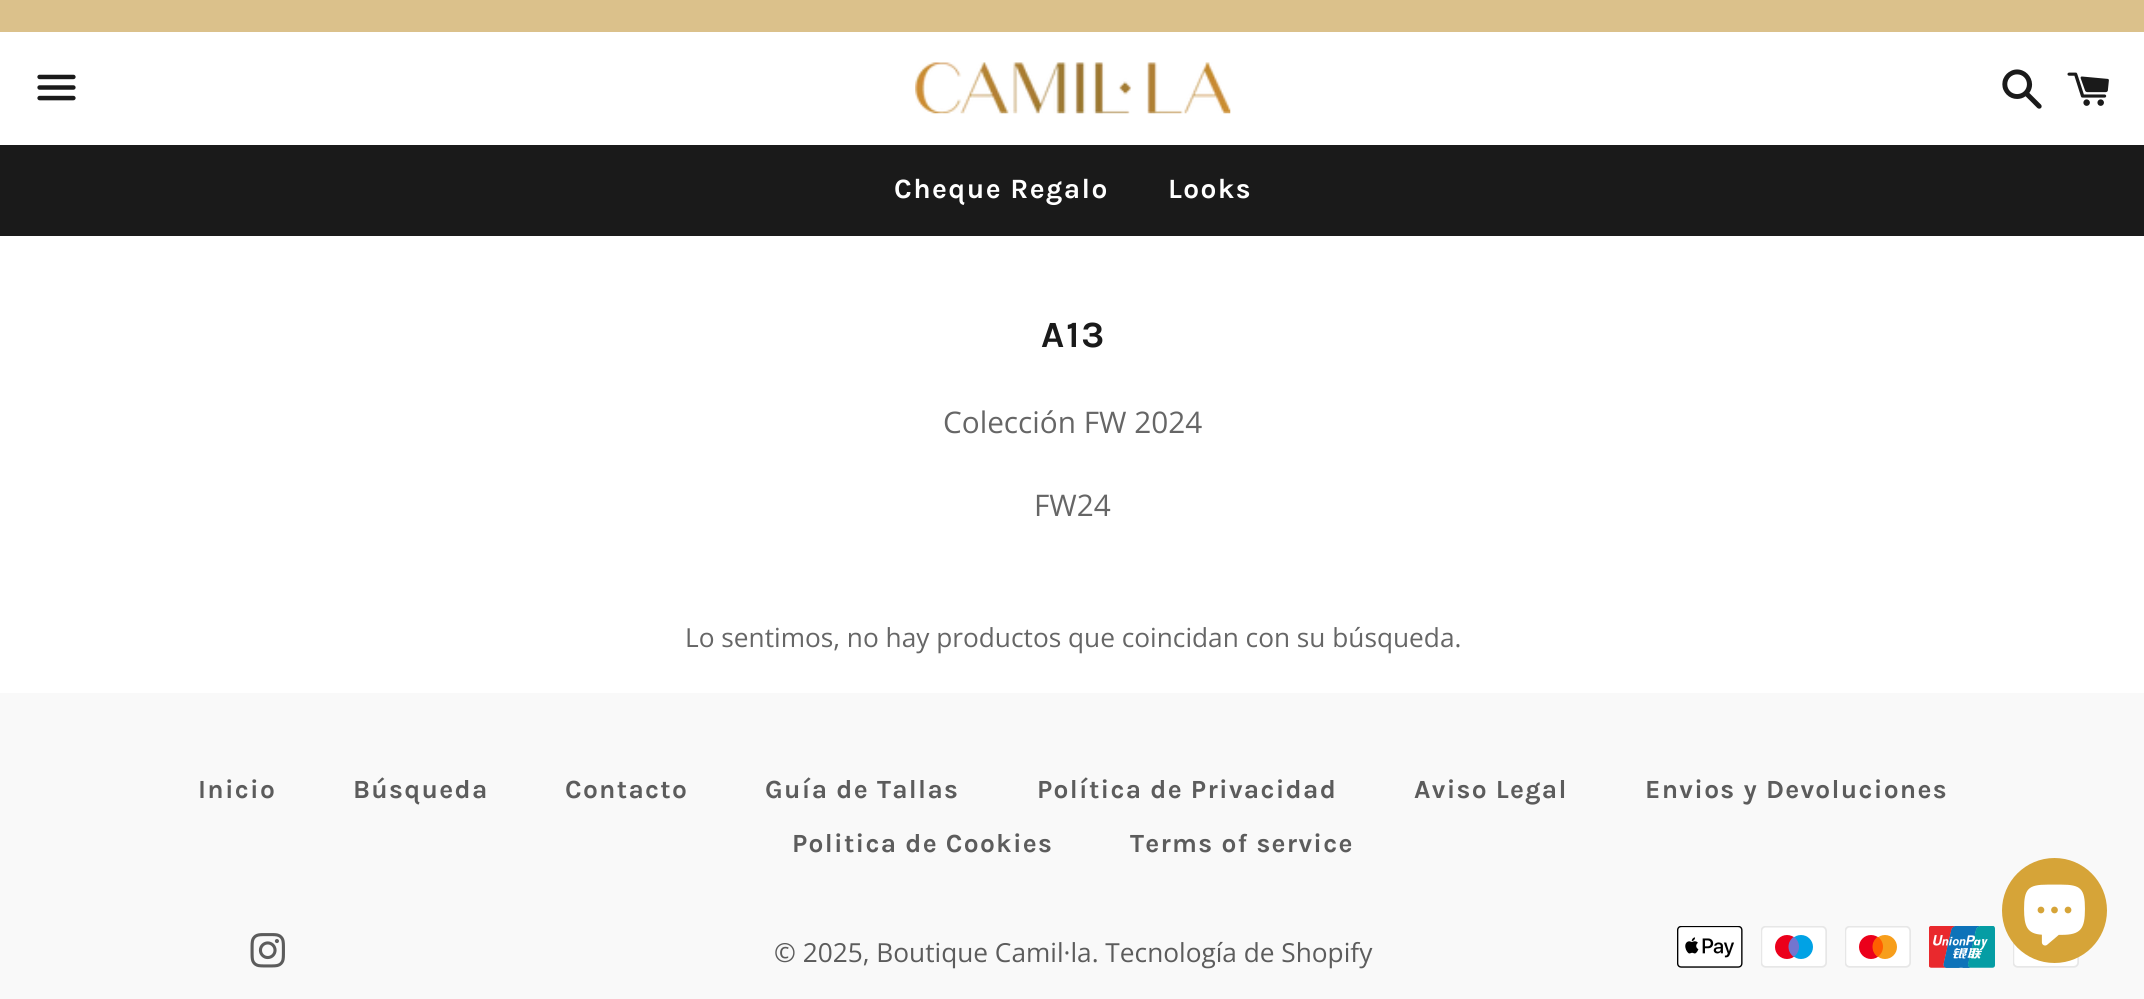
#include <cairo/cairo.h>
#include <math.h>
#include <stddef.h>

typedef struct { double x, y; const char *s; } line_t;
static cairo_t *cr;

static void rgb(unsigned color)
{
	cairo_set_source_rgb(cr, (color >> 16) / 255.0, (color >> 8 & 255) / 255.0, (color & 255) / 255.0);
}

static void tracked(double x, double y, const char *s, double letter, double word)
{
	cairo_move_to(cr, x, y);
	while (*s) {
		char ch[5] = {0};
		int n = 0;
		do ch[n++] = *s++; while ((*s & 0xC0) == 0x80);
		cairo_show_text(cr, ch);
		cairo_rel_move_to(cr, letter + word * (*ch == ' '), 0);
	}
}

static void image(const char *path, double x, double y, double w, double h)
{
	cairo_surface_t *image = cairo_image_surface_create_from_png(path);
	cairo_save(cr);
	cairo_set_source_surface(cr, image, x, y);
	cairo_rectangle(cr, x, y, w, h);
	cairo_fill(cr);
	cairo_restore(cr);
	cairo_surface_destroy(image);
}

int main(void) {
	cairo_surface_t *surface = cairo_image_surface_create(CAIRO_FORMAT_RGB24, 2144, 999);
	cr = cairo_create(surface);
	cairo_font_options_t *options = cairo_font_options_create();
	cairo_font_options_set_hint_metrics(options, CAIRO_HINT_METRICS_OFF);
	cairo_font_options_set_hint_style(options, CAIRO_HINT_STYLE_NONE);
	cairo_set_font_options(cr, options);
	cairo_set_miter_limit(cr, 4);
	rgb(0xffffff);
	cairo_paint(cr);
	rgb(0xdbc18b);
	cairo_rectangle(cr, 0, 0, 2144, 32);
	cairo_fill(cr);
	image("img/1.png", 37, 74, 39, 27);
	image("img/2.png", 915, 62, 316, 52);
	image("img/3.png", 2002, 69, 40, 40);
	image("img/4.png", 2067, 72, 42, 34);
	rgb(0x1a1a1a);
	cairo_rectangle(cr, 0, 145, 2144, 91);
	cairo_fill(cr);
	rgb(0xf9f9f9);
	cairo_rectangle(cr, 0, 693, 2144, 306);
	cairo_fill(cr);
	image("img/5.png", 250, 933, 35, 35);
	image("img/6.png", 1677, 926, 66, 42);
	image("img/7.png", 1761, 926, 66, 42);
	image("img/8.png", 1845, 926, 66, 42);
	image("img/9.png", 1929, 926, 66, 42);
	image("img/10.png", 2013, 942, 66, 26);
	rgb(0xd6a438);
	cairo_arc(cr, 2054.5, 910.5, 52.5, 0, 2 * M_PI);
	cairo_fill(cr);
	image("img/11.png", 2024, 884, 61, 62);
	cairo_select_font_face(cr, "Karla", CAIRO_FONT_SLANT_NORMAL, CAIRO_FONT_WEIGHT_BOLD);
	cairo_set_font_size(cr, 28);
	rgb(0xffffff);
	tracked(894, 198, "Cheque Regalo", 1.4, 0);
	tracked(1168, 198, "Looks", 1.4, 0);
	cairo_set_font_size(cr, 37);
	rgb(0x1a1a1a);
	tracked(1041, 347, "A13", 2, 0);
	cairo_select_font_face(cr, "Open Sans", CAIRO_FONT_SLANT_NORMAL, CAIRO_FONT_WEIGHT_NORMAL);
	cairo_set_font_size(cr, 29.75);
	rgb(0x666666);
	cairo_move_to(cr, 943, 433);
	cairo_show_text(cr, "Colección FW 2024");
	cairo_move_to(cr, 1034, 516);
	cairo_show_text(cr, "FW24");
	cairo_set_font_size(cr, 26.25);
	cairo_move_to(cr, 685, 647);
	cairo_show_text(cr, "Lo sentimos, no hay productos que coincidan con su búsqueda.");
	cairo_select_font_face(cr, "Karla", CAIRO_FONT_SLANT_NORMAL, CAIRO_FONT_WEIGHT_BOLD);
	rgb(0x5c5c5c);
	{
		static const line_t items[] = {
			{198, 798, "Inicio"},
			{353, 798, "Búsqueda"},
			{565, 798, "Contacto"},
			{765, 798, "Guía de Tallas"},
			{1037, 798, "Política de Privacidad"},
			{1414, 798, "Aviso Legal"},
			{1645, 798, "Envios y Devoluciones"},
			{792, 852, "Politica de Cookies"},
			{1130, 852, "Terms of service"},
		};
		for (size_t i = 0; i < sizeof items / sizeof *items; i++) {
			tracked(items[i].x, items[i].y, items[i].s, 1.3, 0);
		}
	}
	cairo_select_font_face(cr, "Open Sans", CAIRO_FONT_SLANT_NORMAL, CAIRO_FONT_WEIGHT_NORMAL);
	cairo_move_to(cr, 774, 962);
	cairo_show_text(cr, "© 2025, Boutique Camil·la. Tecnología de Shopify");
	cairo_surface_write_to_png(surface, "page.png");
	cairo_font_options_destroy(options);
	cairo_destroy(cr);
	cairo_surface_destroy(surface);
	return 0;
}
